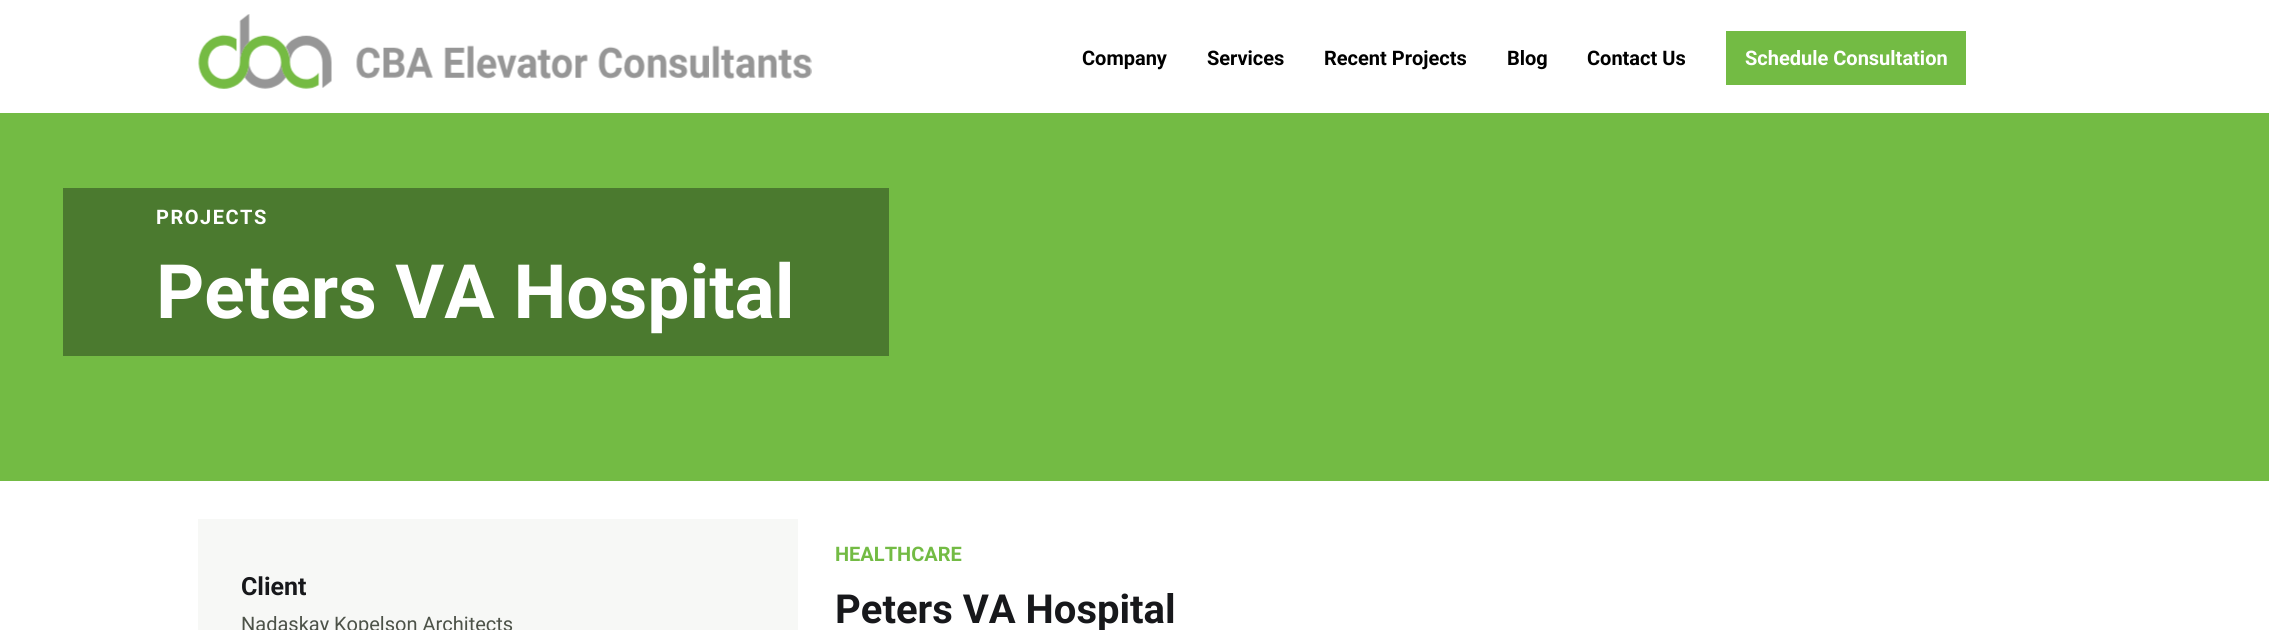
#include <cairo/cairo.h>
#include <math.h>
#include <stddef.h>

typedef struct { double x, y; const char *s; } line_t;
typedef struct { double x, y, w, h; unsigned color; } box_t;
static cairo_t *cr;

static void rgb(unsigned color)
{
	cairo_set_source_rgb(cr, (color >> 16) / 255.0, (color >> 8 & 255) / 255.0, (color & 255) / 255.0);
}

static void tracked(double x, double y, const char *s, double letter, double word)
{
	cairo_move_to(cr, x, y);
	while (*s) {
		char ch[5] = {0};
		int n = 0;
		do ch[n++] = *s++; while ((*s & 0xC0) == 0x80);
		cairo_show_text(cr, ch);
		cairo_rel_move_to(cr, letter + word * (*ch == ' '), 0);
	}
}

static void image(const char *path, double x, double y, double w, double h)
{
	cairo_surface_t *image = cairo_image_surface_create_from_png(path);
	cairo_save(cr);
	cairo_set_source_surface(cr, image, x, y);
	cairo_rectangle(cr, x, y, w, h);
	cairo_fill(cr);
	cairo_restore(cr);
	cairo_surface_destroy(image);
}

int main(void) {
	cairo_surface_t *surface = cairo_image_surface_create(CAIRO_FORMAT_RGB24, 2269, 630);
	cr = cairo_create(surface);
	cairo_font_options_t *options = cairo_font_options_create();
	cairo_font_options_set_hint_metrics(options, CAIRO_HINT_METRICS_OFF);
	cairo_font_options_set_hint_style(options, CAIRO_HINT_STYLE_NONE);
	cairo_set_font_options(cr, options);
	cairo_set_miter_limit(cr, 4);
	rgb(0xffffff);
	cairo_paint(cr);
	image("img/1.png", 198, 14, 614, 75);
	{
		static const box_t items[] = {
			{1726, 31, 240, 54, 0x73bb44},
			{0, 113, 2269, 368, 0x73bb44},
			{63, 188, 826, 168, 0x4b7a2f},
			{198, 519, 600, 111, 0xf7f8f6},
		};
		for (size_t i = 0; i < sizeof items / sizeof *items; i++) {
			rgb(items[i].color);
			cairo_rectangle(cr, items[i].x, items[i].y, items[i].w, items[i].h);
			cairo_fill(cr);
		}
	}
	cairo_select_font_face(cr, "Roboto", CAIRO_FONT_SLANT_NORMAL, CAIRO_FONT_WEIGHT_BOLD);
	cairo_set_font_size(cr, 20);
	rgb(0x000000);
	{
		static const line_t items[] = {
			{1082, 65, "Company"},
			{1207, 65, "Services"},
			{1324, 65, "Recent Projects"},
			{1507, 65, "Blog"},
			{1587, 65, "Contact Us"},
		};
		for (size_t i = 0; i < sizeof items / sizeof *items; i++) {
			cairo_move_to(cr, items[i].x, items[i].y);
			cairo_show_text(cr, items[i].s);
		}
	}
	rgb(0xffffff);
	cairo_move_to(cr, 1745, 65);
	cairo_show_text(cr, "Schedule Consultation");
	tracked(156, 224, "PROJECTS", 1.5, 0);
	cairo_set_font_size(cr, 75);
	cairo_move_to(cr, 156, 318);
	cairo_show_text(cr, "Peters VA Hospital");
	cairo_set_font_size(cr, 25);
	rgb(0x17181b);
	cairo_move_to(cr, 241, 595);
	cairo_show_text(cr, "Client");
	cairo_select_font_face(cr, "Roboto", CAIRO_FONT_SLANT_NORMAL, CAIRO_FONT_WEIGHT_NORMAL);
	cairo_set_font_size(cr, 20);
	rgb(0x4c5248);
	cairo_move_to(cr, 241, 631);
	cairo_show_text(cr, "Nadaskay Kopelson Architects");
	cairo_select_font_face(cr, "Roboto", CAIRO_FONT_SLANT_NORMAL, CAIRO_FONT_WEIGHT_BOLD);
	rgb(0x73bb44);
	cairo_move_to(cr, 835, 561);
	cairo_show_text(cr, "HEALTHCARE");
	cairo_set_font_size(cr, 40);
	rgb(0x17181b);
	cairo_move_to(cr, 835, 623);
	cairo_show_text(cr, "Peters VA Hospital");
	cairo_surface_write_to_png(surface, "page.png");
	cairo_font_options_destroy(options);
	cairo_destroy(cr);
	cairo_surface_destroy(surface);
	return 0;
}
